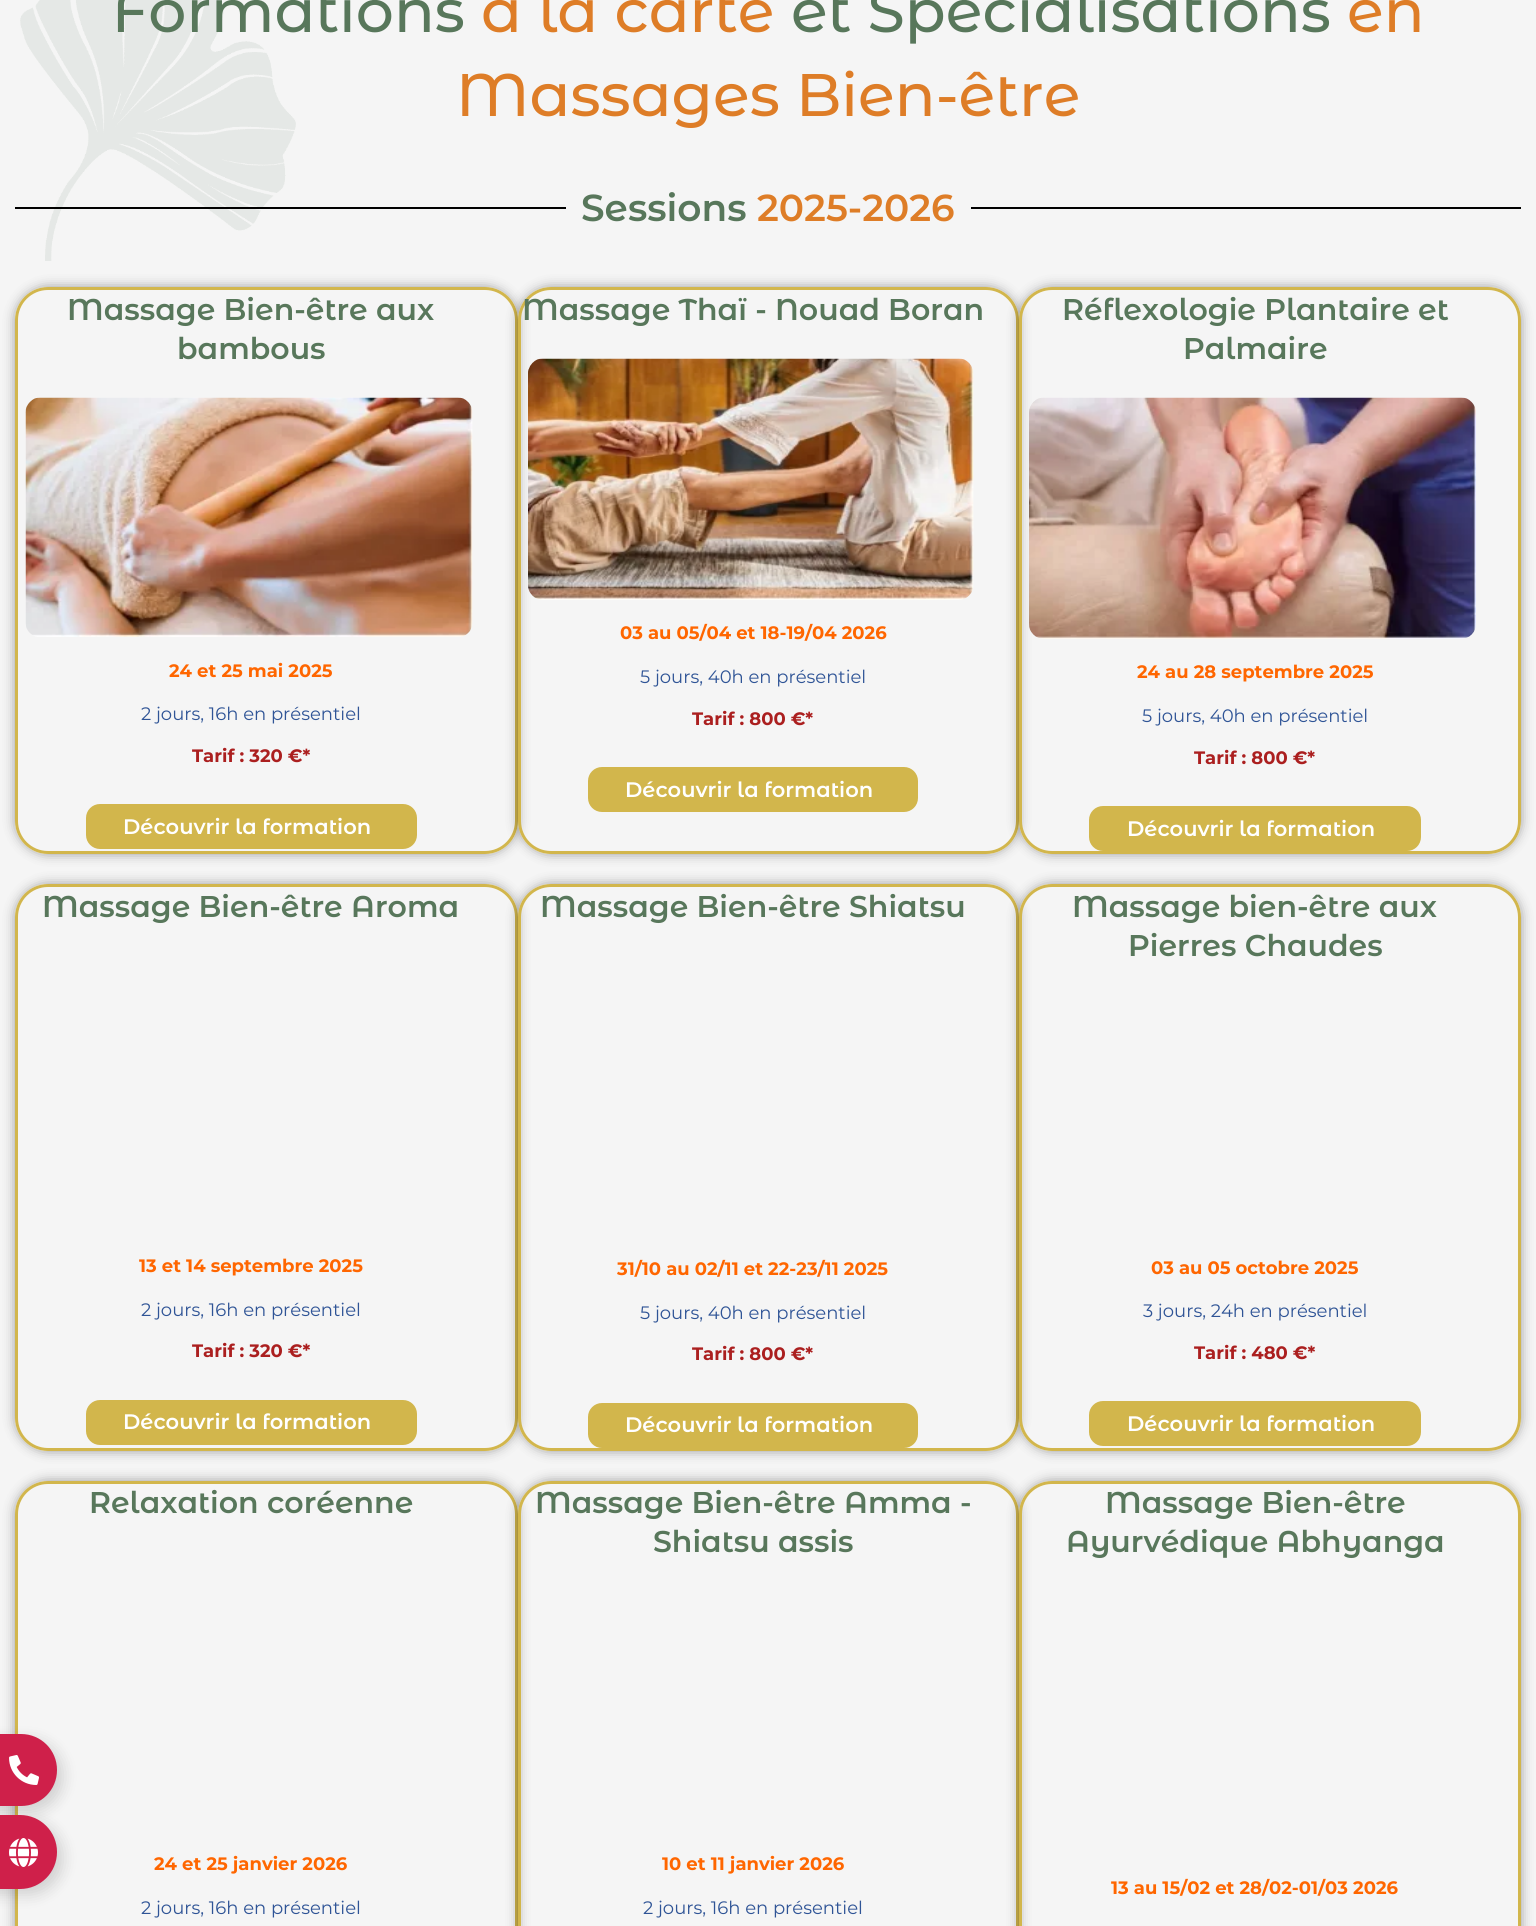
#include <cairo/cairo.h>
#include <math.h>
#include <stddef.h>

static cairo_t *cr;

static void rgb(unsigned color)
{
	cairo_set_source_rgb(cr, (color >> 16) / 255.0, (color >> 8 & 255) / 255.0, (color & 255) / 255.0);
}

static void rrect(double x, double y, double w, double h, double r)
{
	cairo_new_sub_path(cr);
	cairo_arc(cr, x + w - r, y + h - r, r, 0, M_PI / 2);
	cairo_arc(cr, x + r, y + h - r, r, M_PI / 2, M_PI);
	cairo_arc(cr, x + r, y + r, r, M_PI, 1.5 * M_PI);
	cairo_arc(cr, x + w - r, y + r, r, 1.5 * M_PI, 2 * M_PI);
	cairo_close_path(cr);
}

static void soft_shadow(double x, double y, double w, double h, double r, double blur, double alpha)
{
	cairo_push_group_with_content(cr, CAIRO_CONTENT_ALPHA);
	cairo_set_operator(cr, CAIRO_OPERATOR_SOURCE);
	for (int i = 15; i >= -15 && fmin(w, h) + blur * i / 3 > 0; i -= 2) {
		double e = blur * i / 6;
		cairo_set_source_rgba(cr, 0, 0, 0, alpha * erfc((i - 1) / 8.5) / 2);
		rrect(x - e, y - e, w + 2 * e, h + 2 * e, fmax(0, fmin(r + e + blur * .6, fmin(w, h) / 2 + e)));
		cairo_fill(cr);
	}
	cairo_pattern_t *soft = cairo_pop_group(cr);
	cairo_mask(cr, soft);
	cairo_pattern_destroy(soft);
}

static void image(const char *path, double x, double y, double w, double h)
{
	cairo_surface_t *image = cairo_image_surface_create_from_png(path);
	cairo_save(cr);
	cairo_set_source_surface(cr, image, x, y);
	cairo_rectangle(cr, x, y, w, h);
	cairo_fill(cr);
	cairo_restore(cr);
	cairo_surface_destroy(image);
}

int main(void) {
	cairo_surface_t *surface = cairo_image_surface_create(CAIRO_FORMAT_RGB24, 1536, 1926);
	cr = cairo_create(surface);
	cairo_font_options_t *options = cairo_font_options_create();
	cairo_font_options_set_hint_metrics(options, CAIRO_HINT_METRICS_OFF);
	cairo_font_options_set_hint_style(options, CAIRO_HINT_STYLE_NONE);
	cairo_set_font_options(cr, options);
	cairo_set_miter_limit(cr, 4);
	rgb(0xf5f5f5);
	cairo_paint(cr);
	cairo_save(cr);
	cairo_set_fill_rule(cr, CAIRO_FILL_RULE_EVEN_ODD);
	cairo_new_path(cr);
	cairo_move_to(cr, 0, 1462);
	cairo_line_to(cr, 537, 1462);
	cairo_line_to(cr, 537, 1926);
	cairo_line_to(cr, 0, 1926);
	cairo_close_path(cr);
	cairo_move_to(cr, 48, 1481);
	cairo_line_to(cr, 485, 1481);
	cairo_curve_to(cr, 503, 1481, 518, 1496, 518, 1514);
	cairo_line_to(cr, 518, 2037);
	cairo_curve_to(cr, 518, 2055, 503, 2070, 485, 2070);
	cairo_line_to(cr, 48, 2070);
	cairo_curve_to(cr, 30, 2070, 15, 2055, 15, 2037);
	cairo_line_to(cr, 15, 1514);
	cairo_curve_to(cr, 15, 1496, 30, 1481, 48, 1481);
	cairo_close_path(cr);
	cairo_clip(cr);
	rgb(0x000000);
	soft_shadow(15, 1481, 503, 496, 33, 6, 0.36);
	cairo_restore(cr);
	rrect(16.5, 1482.5, 500, 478, 31.5);
	rgb(0xd2b64c);
	cairo_set_line_width(cr, 3);
	cairo_stroke(cr);
	rgb(0x000000);
	soft_shadow(-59, 1740, 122, 72, 36, 7.5, 0.15);
	rgb(0xcf204a);
	cairo_new_path(cr);
	cairo_move_to(cr, -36, 1734);
	cairo_line_to(cr, 21, 1734);
	cairo_curve_to(cr, 41, 1734, 57, 1750, 57, 1770);
	cairo_curve_to(cr, 57, 1790, 41, 1806, 21, 1806);
	cairo_line_to(cr, -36, 1806);
	cairo_close_path(cr);
	cairo_fill(cr);
	image("img/1.png", 9, 1755, 30, 30);
	rgb(0x000000);
	soft_shadow(-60, 1821, 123, 74, 37, 7.5, 0.15);
	rgb(0xcf204a);
	cairo_new_path(cr);
	cairo_move_to(cr, -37, 1815);
	cairo_line_to(cr, 20, 1815);
	cairo_curve_to(cr, 40.5, 1815, 57, 1831.5, 57, 1852);
	cairo_curve_to(cr, 57, 1872.5, 40.5, 1889, 20, 1889);
	cairo_line_to(cr, -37, 1889);
	cairo_close_path(cr);
	cairo_fill(cr);
	image("img/2.png", 9, 1838, 29, 29);
	image("img/3.png", 20, 0, 276, 261);
	rgb(0x000000);
	cairo_rectangle(cr, 15, 207, 551, 2);
	cairo_fill(cr);
	cairo_rectangle(cr, 971, 207, 550, 2);
	cairo_fill(cr);
	cairo_save(cr);
	cairo_set_fill_rule(cr, CAIRO_FILL_RULE_EVEN_ODD);
	cairo_new_path(cr);
	cairo_move_to(cr, 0, 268);
	cairo_line_to(cr, 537, 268);
	cairo_line_to(cr, 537, 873);
	cairo_line_to(cr, 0, 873);
	cairo_close_path(cr);
	cairo_move_to(cr, 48, 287);
	cairo_line_to(cr, 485, 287);
	cairo_curve_to(cr, 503, 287, 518, 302, 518, 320);
	cairo_line_to(cr, 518, 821);
	cairo_curve_to(cr, 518, 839, 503, 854, 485, 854);
	cairo_line_to(cr, 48, 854);
	cairo_curve_to(cr, 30, 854, 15, 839, 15, 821);
	cairo_line_to(cr, 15, 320);
	cairo_curve_to(cr, 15, 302, 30, 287, 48, 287);
	cairo_close_path(cr);
	cairo_clip(cr);
	rgb(0x000000);
	soft_shadow(15, 287, 503, 567, 33, 6, 0.36);
	cairo_restore(cr);
	rrect(16.5, 288.5, 500, 564, 31.5);
	rgb(0xd2b64c);
	cairo_stroke(cr);
	image("img/4.png", 25, 397, 448, 240);
	rrect(86, 804, 331, 45, 14);
	cairo_fill(cr);
	cairo_save(cr);
	cairo_set_fill_rule(cr, CAIRO_FILL_RULE_EVEN_ODD);
	cairo_new_path(cr);
	cairo_move_to(cr, 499, 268);
	cairo_line_to(cr, 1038, 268);
	cairo_line_to(cr, 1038, 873);
	cairo_line_to(cr, 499, 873);
	cairo_close_path(cr);
	cairo_move_to(cr, 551, 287);
	cairo_line_to(cr, 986, 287);
	cairo_curve_to(cr, 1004, 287, 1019, 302, 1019, 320);
	cairo_line_to(cr, 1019, 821);
	cairo_curve_to(cr, 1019, 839, 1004, 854, 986, 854);
	cairo_line_to(cr, 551, 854);
	cairo_curve_to(cr, 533, 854, 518, 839, 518, 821);
	cairo_line_to(cr, 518, 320);
	cairo_curve_to(cr, 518, 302, 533, 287, 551, 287);
	cairo_close_path(cr);
	cairo_clip(cr);
	rgb(0x000000);
	soft_shadow(518, 287, 501, 567, 33, 6, 0.36);
	cairo_restore(cr);
	rrect(519.5, 288.5, 498, 564, 31.5);
	cairo_stroke(cr);
	image("img/5.png", 528, 358, 446, 242);
	rrect(588, 767, 330, 45, 14);
	cairo_fill(cr);
	cairo_save(cr);
	cairo_set_fill_rule(cr, CAIRO_FILL_RULE_EVEN_ODD);
	cairo_new_path(cr);
	cairo_move_to(cr, 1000, 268);
	cairo_line_to(cr, 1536, 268);
	cairo_line_to(cr, 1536, 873);
	cairo_line_to(cr, 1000, 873);
	cairo_close_path(cr);
	cairo_move_to(cr, 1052, 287);
	cairo_line_to(cr, 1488, 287);
	cairo_curve_to(cr, 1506, 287, 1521, 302, 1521, 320);
	cairo_line_to(cr, 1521, 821);
	cairo_curve_to(cr, 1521, 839, 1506, 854, 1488, 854);
	cairo_line_to(cr, 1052, 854);
	cairo_curve_to(cr, 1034, 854, 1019, 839, 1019, 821);
	cairo_line_to(cr, 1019, 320);
	cairo_curve_to(cr, 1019, 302, 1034, 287, 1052, 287);
	cairo_close_path(cr);
	cairo_clip(cr);
	rgb(0x000000);
	soft_shadow(1019, 287, 502, 567, 33, 6, 0.36);
	cairo_restore(cr);
	rrect(1020.5, 288.5, 499, 564, 31.5);
	cairo_stroke(cr);
	image("img/6.png", 1029, 397, 447, 242);
	rrect(1089, 806, 332, 45, 14);
	cairo_fill(cr);
	cairo_save(cr);
	cairo_set_fill_rule(cr, CAIRO_FILL_RULE_EVEN_ODD);
	cairo_new_path(cr);
	cairo_move_to(cr, 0, 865);
	cairo_line_to(cr, 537, 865);
	cairo_line_to(cr, 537, 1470);
	cairo_line_to(cr, 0, 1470);
	cairo_close_path(cr);
	cairo_move_to(cr, 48, 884);
	cairo_line_to(cr, 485, 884);
	cairo_curve_to(cr, 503, 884, 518, 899, 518, 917);
	cairo_line_to(cr, 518, 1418);
	cairo_curve_to(cr, 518, 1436, 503, 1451, 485, 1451);
	cairo_line_to(cr, 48, 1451);
	cairo_curve_to(cr, 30, 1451, 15, 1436, 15, 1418);
	cairo_line_to(cr, 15, 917);
	cairo_curve_to(cr, 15, 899, 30, 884, 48, 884);
	cairo_close_path(cr);
	cairo_clip(cr);
	rgb(0x000000);
	soft_shadow(15, 884, 503, 567, 33, 6, 0.36);
	cairo_restore(cr);
	rrect(16.5, 885.5, 500, 564, 31.5);
	cairo_stroke(cr);
	rrect(86, 1400, 331, 45, 14);
	cairo_fill(cr);
	cairo_save(cr);
	cairo_set_fill_rule(cr, CAIRO_FILL_RULE_EVEN_ODD);
	cairo_new_path(cr);
	cairo_move_to(cr, 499, 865);
	cairo_line_to(cr, 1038, 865);
	cairo_line_to(cr, 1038, 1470);
	cairo_line_to(cr, 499, 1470);
	cairo_close_path(cr);
	cairo_move_to(cr, 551, 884);
	cairo_line_to(cr, 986, 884);
	cairo_curve_to(cr, 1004, 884, 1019, 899, 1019, 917);
	cairo_line_to(cr, 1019, 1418);
	cairo_curve_to(cr, 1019, 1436, 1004, 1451, 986, 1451);
	cairo_line_to(cr, 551, 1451);
	cairo_curve_to(cr, 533, 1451, 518, 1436, 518, 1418);
	cairo_line_to(cr, 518, 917);
	cairo_curve_to(cr, 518, 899, 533, 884, 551, 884);
	cairo_close_path(cr);
	cairo_clip(cr);
	rgb(0x000000);
	soft_shadow(518, 884, 501, 567, 33, 6, 0.36);
	cairo_restore(cr);
	rrect(519.5, 885.5, 498, 564, 31.5);
	cairo_stroke(cr);
	rrect(588, 1403, 330, 45, 14);
	cairo_fill(cr);
	cairo_save(cr);
	cairo_set_fill_rule(cr, CAIRO_FILL_RULE_EVEN_ODD);
	cairo_new_path(cr);
	cairo_move_to(cr, 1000, 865);
	cairo_line_to(cr, 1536, 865);
	cairo_line_to(cr, 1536, 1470);
	cairo_line_to(cr, 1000, 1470);
	cairo_close_path(cr);
	cairo_move_to(cr, 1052, 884);
	cairo_line_to(cr, 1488, 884);
	cairo_curve_to(cr, 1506, 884, 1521, 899, 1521, 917);
	cairo_line_to(cr, 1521, 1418);
	cairo_curve_to(cr, 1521, 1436, 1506, 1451, 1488, 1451);
	cairo_line_to(cr, 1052, 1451);
	cairo_curve_to(cr, 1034, 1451, 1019, 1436, 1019, 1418);
	cairo_line_to(cr, 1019, 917);
	cairo_curve_to(cr, 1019, 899, 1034, 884, 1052, 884);
	cairo_close_path(cr);
	cairo_clip(cr);
	rgb(0x000000);
	soft_shadow(1019, 884, 502, 567, 33, 6, 0.36);
	cairo_restore(cr);
	rrect(1020.5, 885.5, 499, 564, 31.5);
	cairo_stroke(cr);
	rrect(1089, 1401, 332, 45, 14);
	cairo_fill(cr);
	cairo_save(cr);
	cairo_set_fill_rule(cr, CAIRO_FILL_RULE_EVEN_ODD);
	cairo_new_path(cr);
	cairo_move_to(cr, 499, 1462);
	cairo_line_to(cr, 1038, 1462);
	cairo_line_to(cr, 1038, 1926);
	cairo_line_to(cr, 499, 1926);
	cairo_close_path(cr);
	cairo_move_to(cr, 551, 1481);
	cairo_line_to(cr, 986, 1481);
	cairo_curve_to(cr, 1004, 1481, 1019, 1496, 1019, 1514);
	cairo_line_to(cr, 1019, 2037);
	cairo_curve_to(cr, 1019, 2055, 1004, 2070, 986, 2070);
	cairo_line_to(cr, 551, 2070);
	cairo_curve_to(cr, 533, 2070, 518, 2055, 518, 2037);
	cairo_line_to(cr, 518, 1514);
	cairo_curve_to(cr, 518, 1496, 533, 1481, 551, 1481);
	cairo_close_path(cr);
	cairo_clip(cr);
	rgb(0x000000);
	soft_shadow(518, 1481, 501, 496, 33, 6, 0.36);
	cairo_restore(cr);
	rrect(519.5, 1482.5, 498, 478, 31.5);
	cairo_stroke(cr);
	cairo_save(cr);
	cairo_set_fill_rule(cr, CAIRO_FILL_RULE_EVEN_ODD);
	cairo_new_path(cr);
	cairo_move_to(cr, 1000, 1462);
	cairo_line_to(cr, 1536, 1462);
	cairo_line_to(cr, 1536, 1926);
	cairo_line_to(cr, 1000, 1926);
	cairo_close_path(cr);
	cairo_move_to(cr, 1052, 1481);
	cairo_line_to(cr, 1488, 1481);
	cairo_curve_to(cr, 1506, 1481, 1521, 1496, 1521, 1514);
	cairo_line_to(cr, 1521, 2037);
	cairo_curve_to(cr, 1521, 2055, 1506, 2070, 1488, 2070);
	cairo_line_to(cr, 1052, 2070);
	cairo_curve_to(cr, 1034, 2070, 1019, 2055, 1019, 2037);
	cairo_line_to(cr, 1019, 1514);
	cairo_curve_to(cr, 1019, 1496, 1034, 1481, 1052, 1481);
	cairo_close_path(cr);
	cairo_clip(cr);
	rgb(0x000000);
	soft_shadow(1019, 1481, 502, 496, 33, 6, 0.36);
	cairo_restore(cr);
	rrect(1020.5, 1482.5, 499, 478, 31.5);
	cairo_stroke(cr);
	cairo_select_font_face(cr, "Montserrat Alternates Medium", CAIRO_FONT_SLANT_NORMAL, CAIRO_FONT_WEIGHT_NORMAL);
	cairo_set_font_size(cr, 60);
	rgb(0x58775b);
	cairo_move_to(cr, 112, 32);
	cairo_show_text(cr, "Formations");
	rgb(0xde7d27);
	cairo_move_to(cr, 481, 32);
	cairo_show_text(cr, "à la carte");
	rgb(0x58775b);
	cairo_move_to(cr, 791, 32);
	cairo_show_text(cr, "et Spécialisations");
	rgb(0xde7d27);
	cairo_move_to(cr, 1347, 32);
	cairo_show_text(cr, "en");
	cairo_move_to(cr, 456, 116);
	cairo_show_text(cr, "Massages Bien-être");
	cairo_select_font_face(cr, "Montserrat Alternates SemiBold", CAIRO_FONT_SLANT_NORMAL, CAIRO_FONT_WEIGHT_NORMAL);
	cairo_set_font_size(cr, 37.5);
	rgb(0x58775b);
	cairo_move_to(cr, 581, 221);
	cairo_show_text(cr, "Sessions");
	rgb(0xde7d27);
	cairo_move_to(cr, 757, 221);
	cairo_show_text(cr, "2025-2026");
	cairo_set_font_size(cr, 30);
	rgb(0x58775b);
	cairo_move_to(cr, 67, 320);
	cairo_show_text(cr, "Massage Bien-être aux");
	cairo_move_to(cr, 177, 359);
	cairo_show_text(cr, "bambous");
	cairo_select_font_face(cr, "Montserrat", CAIRO_FONT_SLANT_NORMAL, CAIRO_FONT_WEIGHT_BOLD);
	cairo_set_font_size(cr, 18);
	rgb(0xff6600);
	cairo_move_to(cr, 169, 677);
	cairo_show_text(cr, "24 et 25 mai 2025");
	cairo_select_font_face(cr, "Montserrat", CAIRO_FONT_SLANT_NORMAL, CAIRO_FONT_WEIGHT_NORMAL);
	rgb(0x2f5496);
	cairo_move_to(cr, 141, 720);
	cairo_show_text(cr, "2 jours, 16h en présentiel");
	cairo_select_font_face(cr, "Montserrat", CAIRO_FONT_SLANT_NORMAL, CAIRO_FONT_WEIGHT_BOLD);
	rgb(0xab1f1f);
	cairo_move_to(cr, 192, 762);
	cairo_show_text(cr, "Tarif : 320 €*");
	cairo_select_font_face(cr, "Montserrat Alternates SemiBold", CAIRO_FONT_SLANT_NORMAL, CAIRO_FONT_WEIGHT_NORMAL);
	cairo_set_font_size(cr, 21);
	rgb(0xffffff);
	cairo_move_to(cr, 123, 834);
	cairo_show_text(cr, "Découvrir la formation");
	cairo_set_font_size(cr, 30);
	rgb(0x58775b);
	cairo_move_to(cr, 522, 320);
	cairo_show_text(cr, "Massage Thaï - Nouad Boran");
	cairo_select_font_face(cr, "Montserrat", CAIRO_FONT_SLANT_NORMAL, CAIRO_FONT_WEIGHT_BOLD);
	cairo_set_font_size(cr, 18);
	rgb(0xff6600);
	cairo_move_to(cr, 620, 639);
	cairo_show_text(cr, "03 au 05/04 et 18-19/04 2026");
	cairo_select_font_face(cr, "Montserrat", CAIRO_FONT_SLANT_NORMAL, CAIRO_FONT_WEIGHT_NORMAL);
	rgb(0x2f5496);
	cairo_move_to(cr, 640, 683);
	cairo_show_text(cr, "5 jours, 40h en présentiel");
	cairo_select_font_face(cr, "Montserrat", CAIRO_FONT_SLANT_NORMAL, CAIRO_FONT_WEIGHT_BOLD);
	rgb(0xab1f1f);
	cairo_move_to(cr, 692, 725);
	cairo_show_text(cr, "Tarif : 800 €*");
	cairo_select_font_face(cr, "Montserrat Alternates SemiBold", CAIRO_FONT_SLANT_NORMAL, CAIRO_FONT_WEIGHT_NORMAL);
	cairo_set_font_size(cr, 21);
	rgb(0xffffff);
	cairo_move_to(cr, 625, 797);
	cairo_show_text(cr, "Découvrir la formation");
	cairo_set_font_size(cr, 30);
	rgb(0x58775b);
	cairo_move_to(cr, 1062, 320);
	cairo_show_text(cr, "Réflexologie Plantaire et");
	cairo_move_to(cr, 1183, 359);
	cairo_show_text(cr, "Palmaire");
	cairo_select_font_face(cr, "Montserrat", CAIRO_FONT_SLANT_NORMAL, CAIRO_FONT_WEIGHT_BOLD);
	cairo_set_font_size(cr, 18);
	rgb(0xff6600);
	cairo_move_to(cr, 1137, 678);
	cairo_show_text(cr, "24 au 28 septembre 2025");
	cairo_select_font_face(cr, "Montserrat", CAIRO_FONT_SLANT_NORMAL, CAIRO_FONT_WEIGHT_NORMAL);
	rgb(0x2f5496);
	cairo_move_to(cr, 1142, 722);
	cairo_show_text(cr, "5 jours, 40h en présentiel");
	cairo_select_font_face(cr, "Montserrat", CAIRO_FONT_SLANT_NORMAL, CAIRO_FONT_WEIGHT_BOLD);
	rgb(0xab1f1f);
	cairo_move_to(cr, 1194, 764);
	cairo_show_text(cr, "Tarif : 800 €*");
	cairo_select_font_face(cr, "Montserrat Alternates SemiBold", CAIRO_FONT_SLANT_NORMAL, CAIRO_FONT_WEIGHT_NORMAL);
	cairo_set_font_size(cr, 21);
	rgb(0xffffff);
	cairo_move_to(cr, 1127, 836);
	cairo_show_text(cr, "Découvrir la formation");
	cairo_set_font_size(cr, 30);
	rgb(0x58775b);
	cairo_move_to(cr, 42, 917);
	cairo_show_text(cr, "Massage Bien-être Aroma");
	cairo_select_font_face(cr, "Montserrat", CAIRO_FONT_SLANT_NORMAL, CAIRO_FONT_WEIGHT_BOLD);
	cairo_set_font_size(cr, 18);
	rgb(0xff6600);
	cairo_move_to(cr, 139, 1272);
	cairo_show_text(cr, "13 et 14 septembre 2025");
	cairo_select_font_face(cr, "Montserrat", CAIRO_FONT_SLANT_NORMAL, CAIRO_FONT_WEIGHT_NORMAL);
	rgb(0x2f5496);
	cairo_move_to(cr, 141, 1316);
	cairo_show_text(cr, "2 jours, 16h en présentiel");
	cairo_select_font_face(cr, "Montserrat", CAIRO_FONT_SLANT_NORMAL, CAIRO_FONT_WEIGHT_BOLD);
	rgb(0xab1f1f);
	cairo_move_to(cr, 192, 1357);
	cairo_show_text(cr, "Tarif : 320 €*");
	cairo_select_font_face(cr, "Montserrat Alternates SemiBold", CAIRO_FONT_SLANT_NORMAL, CAIRO_FONT_WEIGHT_NORMAL);
	cairo_set_font_size(cr, 21);
	rgb(0xffffff);
	cairo_move_to(cr, 123, 1429);
	cairo_show_text(cr, "Découvrir la formation");
	cairo_set_font_size(cr, 30);
	rgb(0x58775b);
	cairo_move_to(cr, 540, 917);
	cairo_show_text(cr, "Massage Bien-être Shiatsu");
	cairo_select_font_face(cr, "Montserrat", CAIRO_FONT_SLANT_NORMAL, CAIRO_FONT_WEIGHT_BOLD);
	cairo_set_font_size(cr, 18);
	rgb(0xff6600);
	cairo_move_to(cr, 617, 1275);
	cairo_show_text(cr, "31/10 au 02/11 et 22-23/11 2025");
	cairo_select_font_face(cr, "Montserrat", CAIRO_FONT_SLANT_NORMAL, CAIRO_FONT_WEIGHT_NORMAL);
	rgb(0x2f5496);
	cairo_move_to(cr, 640, 1319);
	cairo_show_text(cr, "5 jours, 40h en présentiel");
	cairo_select_font_face(cr, "Montserrat", CAIRO_FONT_SLANT_NORMAL, CAIRO_FONT_WEIGHT_BOLD);
	rgb(0xab1f1f);
	cairo_move_to(cr, 692, 1360);
	cairo_show_text(cr, "Tarif : 800 €*");
	cairo_select_font_face(cr, "Montserrat Alternates SemiBold", CAIRO_FONT_SLANT_NORMAL, CAIRO_FONT_WEIGHT_NORMAL);
	cairo_set_font_size(cr, 21);
	rgb(0xffffff);
	cairo_move_to(cr, 625, 1432);
	cairo_show_text(cr, "Découvrir la formation");
	cairo_set_font_size(cr, 30);
	rgb(0x58775b);
	cairo_move_to(cr, 1072, 917);
	cairo_show_text(cr, "Massage bien-être aux");
	cairo_move_to(cr, 1128, 956);
	cairo_show_text(cr, "Pierres Chaudes");
	cairo_select_font_face(cr, "Montserrat", CAIRO_FONT_SLANT_NORMAL, CAIRO_FONT_WEIGHT_BOLD);
	cairo_set_font_size(cr, 18);
	rgb(0xff6600);
	cairo_move_to(cr, 1151, 1274);
	cairo_show_text(cr, "03 au 05 octobre 2025");
	cairo_select_font_face(cr, "Montserrat", CAIRO_FONT_SLANT_NORMAL, CAIRO_FONT_WEIGHT_NORMAL);
	rgb(0x2f5496);
	cairo_move_to(cr, 1143, 1317);
	cairo_show_text(cr, "3 jours, 24h en présentiel");
	cairo_select_font_face(cr, "Montserrat", CAIRO_FONT_SLANT_NORMAL, CAIRO_FONT_WEIGHT_BOLD);
	rgb(0xab1f1f);
	cairo_move_to(cr, 1194, 1359);
	cairo_show_text(cr, "Tarif : 480 €*");
	cairo_select_font_face(cr, "Montserrat Alternates SemiBold", CAIRO_FONT_SLANT_NORMAL, CAIRO_FONT_WEIGHT_NORMAL);
	cairo_set_font_size(cr, 21);
	rgb(0xffffff);
	cairo_move_to(cr, 1127, 1431);
	cairo_show_text(cr, "Découvrir la formation");
	cairo_set_font_size(cr, 30);
	rgb(0x58775b);
	cairo_move_to(cr, 89, 1513);
	cairo_show_text(cr, "Relaxation coréenne");
	cairo_select_font_face(cr, "Montserrat", CAIRO_FONT_SLANT_NORMAL, CAIRO_FONT_WEIGHT_BOLD);
	cairo_set_font_size(cr, 18);
	rgb(0xff6600);
	cairo_move_to(cr, 154, 1870);
	cairo_show_text(cr, "24 et 25 janvier 2026");
	cairo_select_font_face(cr, "Montserrat", CAIRO_FONT_SLANT_NORMAL, CAIRO_FONT_WEIGHT_NORMAL);
	rgb(0x2f5496);
	cairo_move_to(cr, 141, 1914);
	cairo_show_text(cr, "2 jours, 16h en présentiel");
	cairo_select_font_face(cr, "Montserrat Alternates SemiBold", CAIRO_FONT_SLANT_NORMAL, CAIRO_FONT_WEIGHT_NORMAL);
	cairo_set_font_size(cr, 30);
	rgb(0x58775b);
	cairo_move_to(cr, 535, 1513);
	cairo_show_text(cr, "Massage Bien-être Amma -");
	cairo_move_to(cr, 653, 1552);
	cairo_show_text(cr, "Shiatsu assis");
	cairo_select_font_face(cr, "Montserrat", CAIRO_FONT_SLANT_NORMAL, CAIRO_FONT_WEIGHT_BOLD);
	cairo_set_font_size(cr, 18);
	rgb(0xff6600);
	cairo_move_to(cr, 662, 1870);
	cairo_show_text(cr, "10 et 11 janvier 2026");
	cairo_select_font_face(cr, "Montserrat", CAIRO_FONT_SLANT_NORMAL, CAIRO_FONT_WEIGHT_NORMAL);
	rgb(0x2f5496);
	cairo_move_to(cr, 643, 1914);
	cairo_show_text(cr, "2 jours, 16h en présentiel");
	cairo_select_font_face(cr, "Montserrat Alternates SemiBold", CAIRO_FONT_SLANT_NORMAL, CAIRO_FONT_WEIGHT_NORMAL);
	cairo_set_font_size(cr, 30);
	rgb(0x58775b);
	cairo_move_to(cr, 1105, 1513);
	cairo_show_text(cr, "Massage Bien-être");
	cairo_move_to(cr, 1066, 1552);
	cairo_show_text(cr, "Ayurvédique Abhyanga");
	cairo_select_font_face(cr, "Montserrat", CAIRO_FONT_SLANT_NORMAL, CAIRO_FONT_WEIGHT_BOLD);
	cairo_set_font_size(cr, 18);
	rgb(0xff6600);
	cairo_move_to(cr, 1111, 1894);
	cairo_show_text(cr, "13 au 15/02 et 28/02-01/03 2026");
	cairo_surface_write_to_png(surface, "page.png");
	cairo_font_options_destroy(options);
	cairo_destroy(cr);
	cairo_surface_destroy(surface);
	return 0;
}
